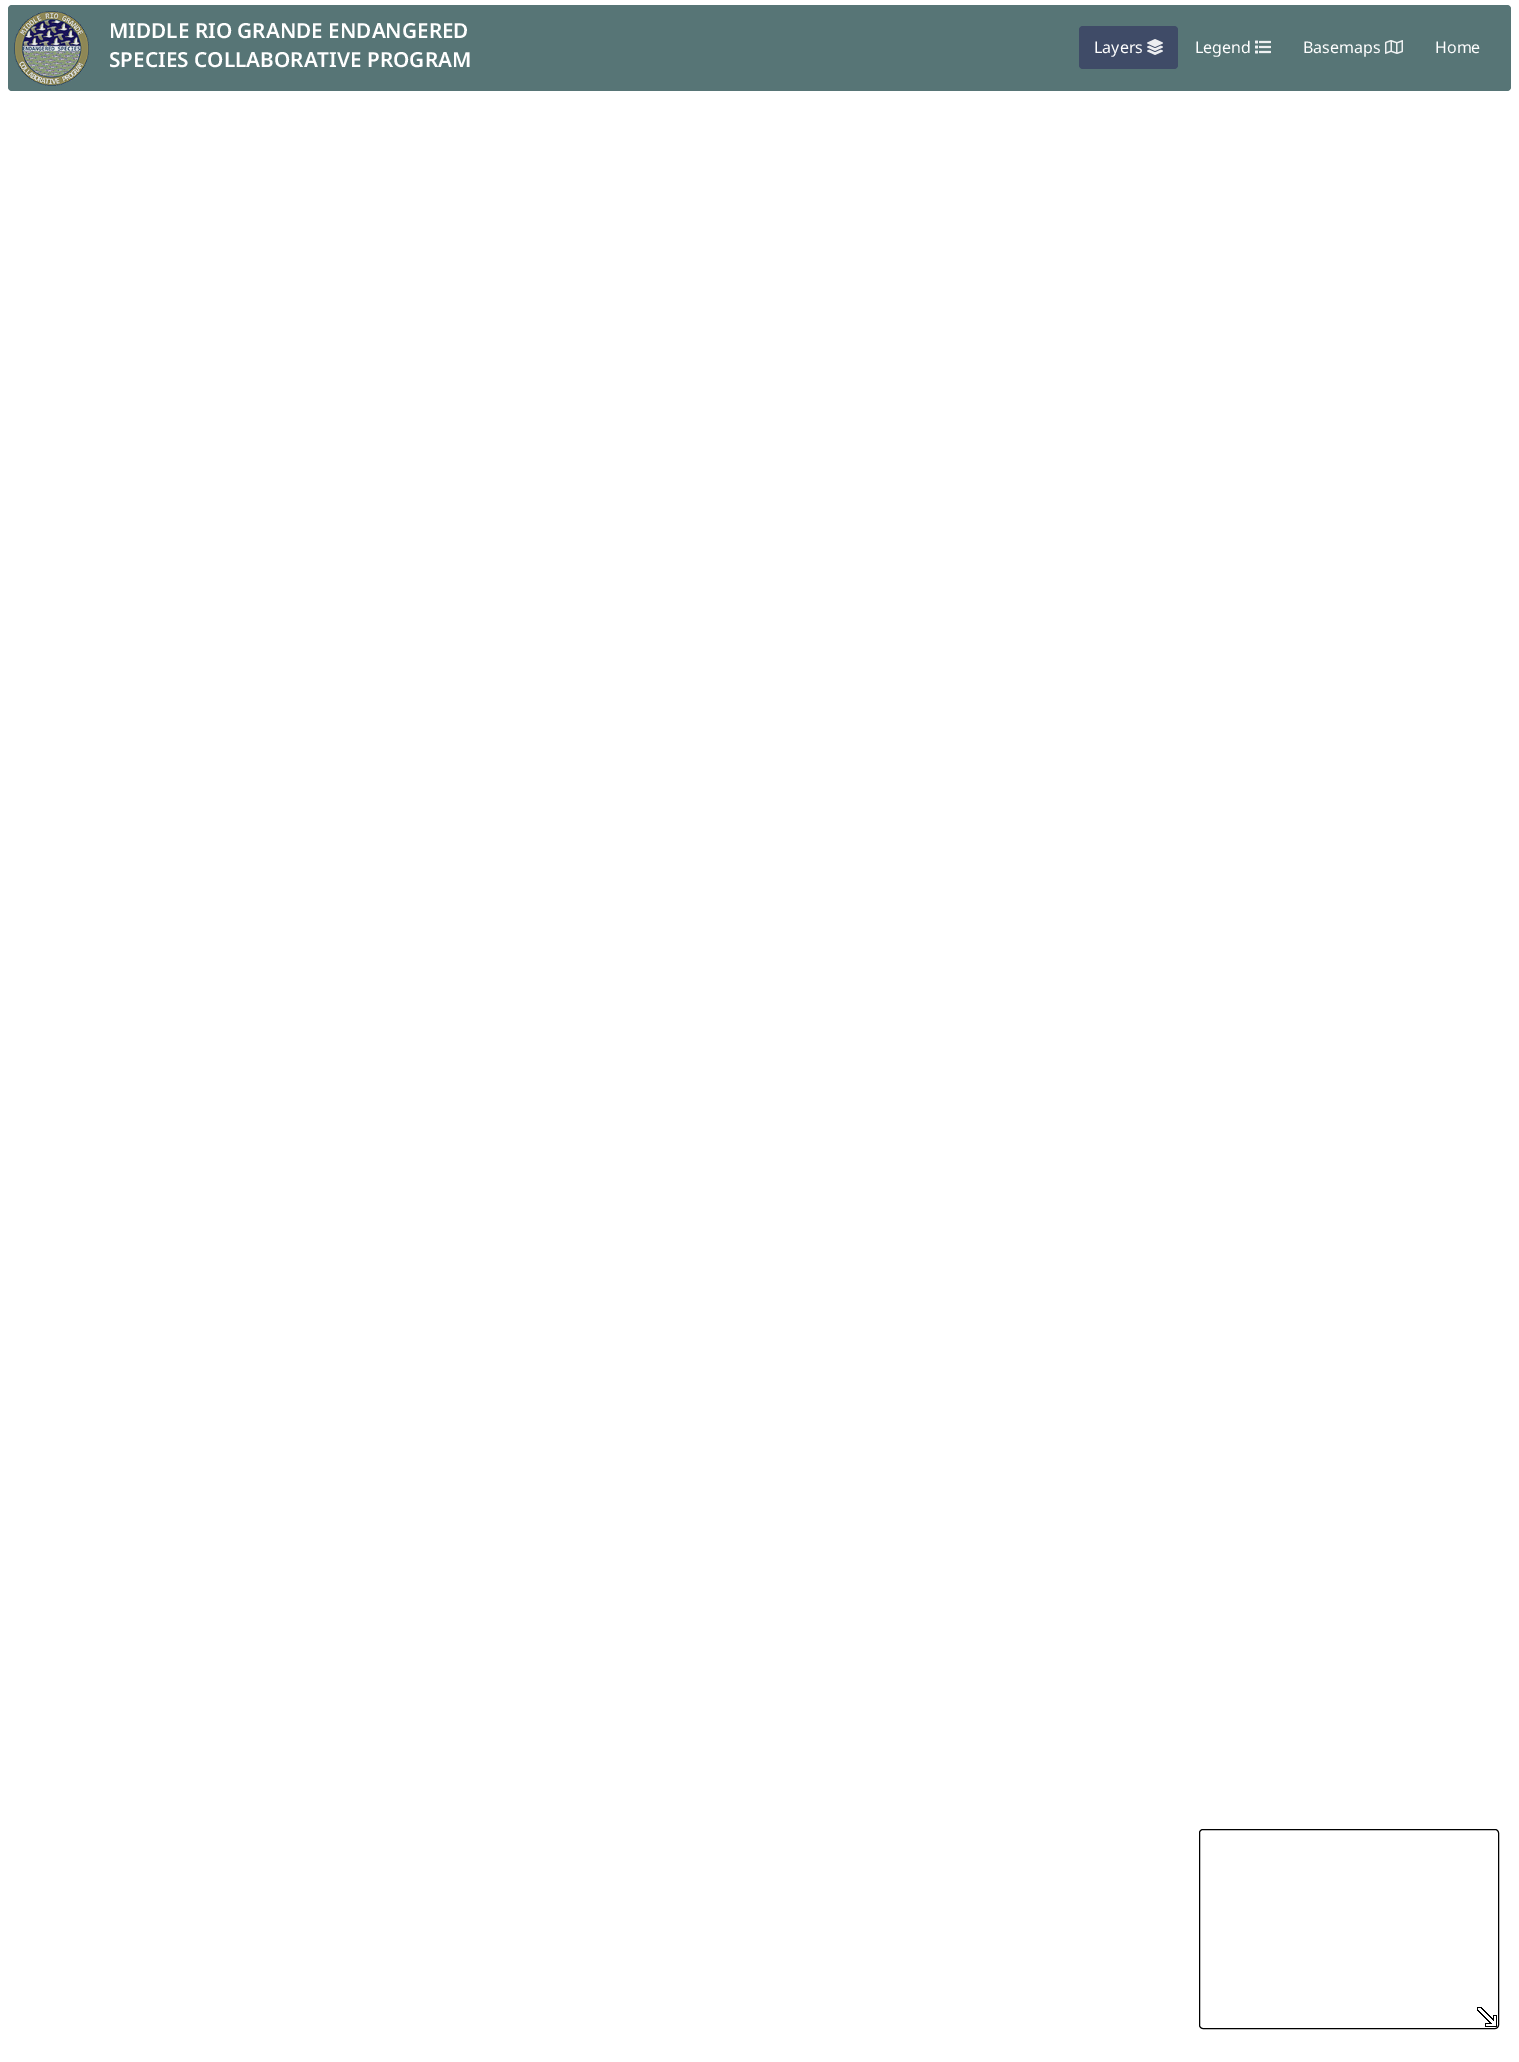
%!PS
<< /PageSize [1519 2062] >> setpagedevice
/roundrect { 5 dict begin { /r /h /w /y /x } { exch def } forall
  x r add y moveto x w add y 2 copy h add r arct x w add y h add x 1 index r arct
  x y h add x y r arct x y 2 copy exch w add exch r arct closepath end } def
/picture { 5 dict begin { /h /w /y /x /name } { exch def } forall
  gsave x y translate w h scale
  w h 8 [w 0 0 h 0 0] name (r) file false 3 colorimage grestore end } def
0 2062 translate 1 -1 scale
4 setmiterlimit
1 setgray
0 0 1519 2062 rectfill
0.341 0.459 0.463 setrgbcolor
8 5 1503 86 4 roundrect fill
(img1.rgb) 14 11 75 75 picture
/NotoSans-SemiBold [20.75 0 0 -20.75 0 0] selectfont
1 setgray
109 38 moveto (MIDDLE RIO GRANDE ENDANGERED) show
109 67 moveto (SPECIES COLLABORATIVE PROGRAM) show
0.247 0.294 0.404 setrgbcolor
1079 26 99 43 4 roundrect fill
/NotoSans-Regular [16 0 0 -16 0 0] selectfont
1 setgray
1094 53 moveto (Layers) show
(img2.rgb) 1147 39 16 16 picture
1195 53 moveto (Legend) show
(img3.rgb) 1255 40 16 14 picture
1303 53 moveto (Basemaps) show
(img4.rgb) 1385 40 18 14 picture
1435 53 moveto (Home) show
0 setgray
1199.5 1829.5 299 199 3.5 roundrect stroke
(img5.rgb) 1477 2007 20 20 picture
showpage
